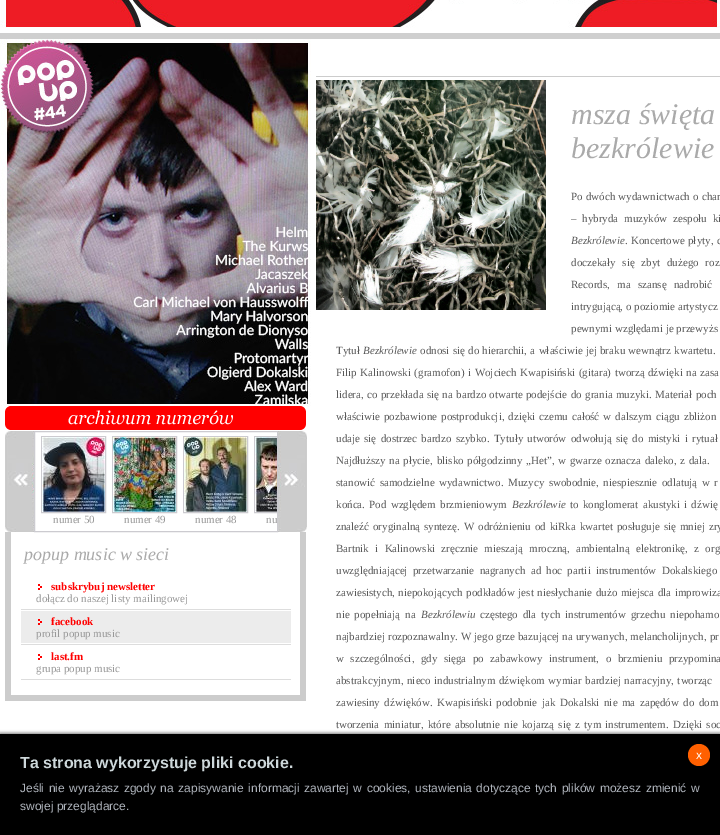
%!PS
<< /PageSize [720 835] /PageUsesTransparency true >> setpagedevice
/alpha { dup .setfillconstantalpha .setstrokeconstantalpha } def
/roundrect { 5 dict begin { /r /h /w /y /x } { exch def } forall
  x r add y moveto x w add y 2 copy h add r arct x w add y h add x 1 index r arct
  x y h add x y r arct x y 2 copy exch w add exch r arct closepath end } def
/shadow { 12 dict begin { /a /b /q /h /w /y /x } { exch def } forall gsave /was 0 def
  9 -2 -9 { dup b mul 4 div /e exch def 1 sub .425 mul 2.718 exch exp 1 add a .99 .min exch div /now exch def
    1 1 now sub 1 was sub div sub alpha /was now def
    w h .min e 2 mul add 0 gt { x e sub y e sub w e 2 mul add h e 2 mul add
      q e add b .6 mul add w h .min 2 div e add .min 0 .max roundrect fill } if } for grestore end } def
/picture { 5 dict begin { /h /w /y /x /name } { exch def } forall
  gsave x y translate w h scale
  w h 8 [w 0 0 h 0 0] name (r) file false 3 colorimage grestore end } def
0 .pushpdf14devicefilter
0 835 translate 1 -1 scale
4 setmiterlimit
0.812 setgray
0 0 720 835 rectfill
1 setgray
0 28 720 5 rectfill
(img1.rgb) 0 0 720 28 picture
0 39 720 695 rectfill
(img2.rgb) 0 39 311 367 picture
(img3.rgb) 5 406 304 24 picture
(img4.rgb) 5 431 29 101 picture
0.8 0.796 0.816 setrgbcolor
34.5 431.5 243 100 rectstroke
41.5 436.5 64 76 rectstroke
(img5.rgb) 42 437 63 75 picture
/LiberationSerif-Regular [11 0 0 -11 0 0] selectfont
0.6 setgray
53 523 moveto (numer 50) show
0.8 0.796 0.816 setrgbcolor
112.5 436.5 64 76 rectstroke
(img6.rgb) 113 437 63 75 picture
0.6 setgray
124 523 moveto (numer 49) show
0.8 0.796 0.816 setrgbcolor
183.5 436.5 64 76 rectstroke
(img7.rgb) 184 437 63 75 picture
0.6 setgray
195 523 moveto (numer 48) show
(img9.rgb) 278 431 29 101 picture
gsave
35 432 242 99 rectclip
0.8 0.796 0.816 setrgbcolor
254.5 436.5 64 76 rectstroke
grestore
(img8.rgb) 255 437 22 75 picture
266 523 moveto (nu) show
0.8 setgray
300 532 6 169 rectfill
5 695 301 6 rectfill
5 532 6 169 rectfill
/LiberationSerif-Italic [18 0 0 -18 0 0] selectfont
0.667 setgray
24 560 moveto (popup music w sieci) show
0.867 setgray
21 609 270 1 rectfill
(img10.rgb) 38 584 4 6 picture
/LiberationSerif-Bold [11 0 0 -11 0 0] selectfont
1 0 0 setrgbcolor
51 590 moveto (subskrybuj newsletter) show
/LiberationSerif-Regular [11 0 0 -11 0 0] selectfont
0.6 setgray
36 602 moveto (dołącz do naszej listy mailingowej) show
0.867 setgray
21 644 270 1 rectfill
0.925 setgray
21 611 270 32 rectfill
(img11.rgb) 38 619 4 6 picture
/LiberationSerif-Bold [11 0 0 -11 0 0] selectfont
1 0 0 setrgbcolor
51 625 moveto (facebook) show
/LiberationSerif-Regular [11 0 0 -11 0 0] selectfont
0.6 setgray
36 637 moveto (profil popup music) show
0.867 setgray
21 679 270 1 rectfill
(img10.rgb) 38 654 4 6 picture
/LiberationSerif-Bold [11 0 0 -11 0 0] selectfont
1 0 0 setrgbcolor
51 660 moveto (last.fm) show
/LiberationSerif-Regular [11 0 0 -11 0 0] selectfont
0.6 setgray
36 672 moveto (grupa popup music) show
0.8 setgray
316 76 404 1 rectfill
(img12.rgb) 316 80 230 230 picture
/LiberationSerif-Italic [30 0 0 -30 0 0] selectfont
0.667 setgray
571 124 moveto (msza święta) show
571 158 moveto (bezkrólewie) show
/LiberationSerif-Regular [11 0 0 -11 0 0] selectfont
0.349 setgray
571 200 moveto 0.5 0 32 (Po dwóch wydawnictwach o char) widthshow
571 222 moveto 3 0 32 (– hybryda muzyków zespołu ki) widthshow
/LiberationSerif-Italic [11 0 0 -11 0 0] selectfont
571 244 moveto (Bezkrólewie) show
/LiberationSerif-Regular [11 0 0 -11 0 0] selectfont
625 244 moveto 0.5 0 32 (. Koncertowe płyty, c) widthshow
571 266 moveto 4 0 32 (doczekały się zbyt dużego roz) widthshow
571 288 moveto 4.5 0 32 (Records, ma szansę nadrobić) widthshow
571 310 moveto (intrygującą, o poziomie artystycz) show
571 332 moveto (pewnymi względami je przewyżs) show
336 354 moveto (Tytuł) show
/LiberationSerif-Italic [11 0 0 -11 0 0] selectfont
363 354 moveto (Bezkrólewie) show
/LiberationSerif-Regular [11 0 0 -11 0 0] selectfont
420 354 moveto 0.5 0 32 (odnosi się do hierarchii, a właściwie jej braku wewnątrz kwartetu.) widthshow
336 376 moveto 0.75 0 32 (Filip Kalinowski \(gramofon\) i Wojciech Kwapisiński \(gitara\) tworzą dźwięki na zasa) widthshow
336 398 moveto 0.6 0 32 (lidera, co przekłada się na bardzo otwarte podejście do grania muzyki. Materiał poch) widthshow
336 420 moveto 1.25 0 32 (właściwie pozbawione postprodukcji, dzięki czemu całość w dalszym ciągu zbliżon) widthshow
336 442 moveto 1.5 0 32 (udaje się dostrzec bardzo szybko. Tytuły utworów odwołują się do mistyki i rytuał) widthshow
336 464 moveto 1 0 32 (Najdłuższy na płycie, blisko półgodzinny „Het”, w gwarze oznacza daleko, z dala.) widthshow
336 486 moveto 1.75 0 32 (stanowić samodzielne wydawnictwo. Muzycy swobodnie, niespiesznie odlatują w r) widthshow
336 508 moveto 1.5 0 32 (końca. Pod względem brzmieniowym) widthshow
/LiberationSerif-Italic [11 0 0 -11 0 0] selectfont
512 508 moveto (Bezkrólewie) show
/LiberationSerif-Regular [11 0 0 -11 0 0] selectfont
570 508 moveto 1.5 0 32 (to konglomerat akustyki i dźwię) widthshow
336 530 moveto 1.25 0 32 (znaleźć oryginalną syntezę. W odróżnieniu od kiRka kwartet posługuje się mniej zry) widthshow
336 552 moveto 3.5 0 32 (Bartnik i Kalinowski zręcznie mieszają mroczną, ambientalną elektronikę, z org) widthshow
336 574 moveto 2.5 0 32 (uwzględniającej przetwarzanie nagranych ad hoc partii instrumentów Dokalskiego) widthshow
336 596 moveto 0.75 0 32 (zawiesistych, niepokojących podkładów jest niesłychanie dużo miejsca dla improwiza) widthshow
336 618 moveto 2.25 0 32 (nie popełniają na) widthshow
/LiberationSerif-Italic [11 0 0 -11 0 0] selectfont
421 618 moveto (Bezkrólewiu) show
/LiberationSerif-Regular [11 0 0 -11 0 0] selectfont
480 618 moveto 2.25 0 32 (częstego dla tych instrumentów grzechu niepohamo) widthshow
336 640 moveto 0.25 0 32 (najbardziej rozpoznawalny. W jego grze bazującej na urywanych, melancholijnych, pr) widthshow
336 662 moveto 3.75 0 32 (w szczególności, gdy sięga po zabawkowy instrument, o brzmieniu przypomina) widthshow
336 684 moveto 0.75 0 32 (abstrakcyjnym, nieco industrialnym dźwiękom wymiar bardziej narracyjny, tworząc) widthshow
336 706 moveto 1.75 0 32 (zawiesiny dźwięków. Kwapisiński podobnie jak Dokalski nie ma zapędów do dom) widthshow
336 728 moveto 1.5 0 32 (tworzenia miniatur, które absolutnie nie kojarzą się z tym instrumentem. Dzięki soc) widthshow
0 setgray
0 733 720 101 0 1.5 0.5 shadow
0 734 720 101 rectfill
/LiberationSans-Bold [16 0 0 -16 0 0] selectfont
0.804 0.843 0.855 setrgbcolor
20 768 moveto (Ta strona wykorzystuje pliki cookie.) show
1 0.376 0 setrgbcolor
newpath 699 755 11 0 360 arc closepath fill
/LiberationSans-Regular [12 0 0 -12 0 0] selectfont
1 setgray
696 759 moveto (x) show
0.686 0.706 0.737 setrgbcolor
20 792 moveto 1.25 0 32 (Jeśli nie wyrażasz zgody na zapisywanie informacji zawartej w cookies, ustawienia dotyczące tych plików możesz zmienić w) widthshow
20 810 moveto (swojej przeglądarce.) show
.poppdf14devicefilter showpage
